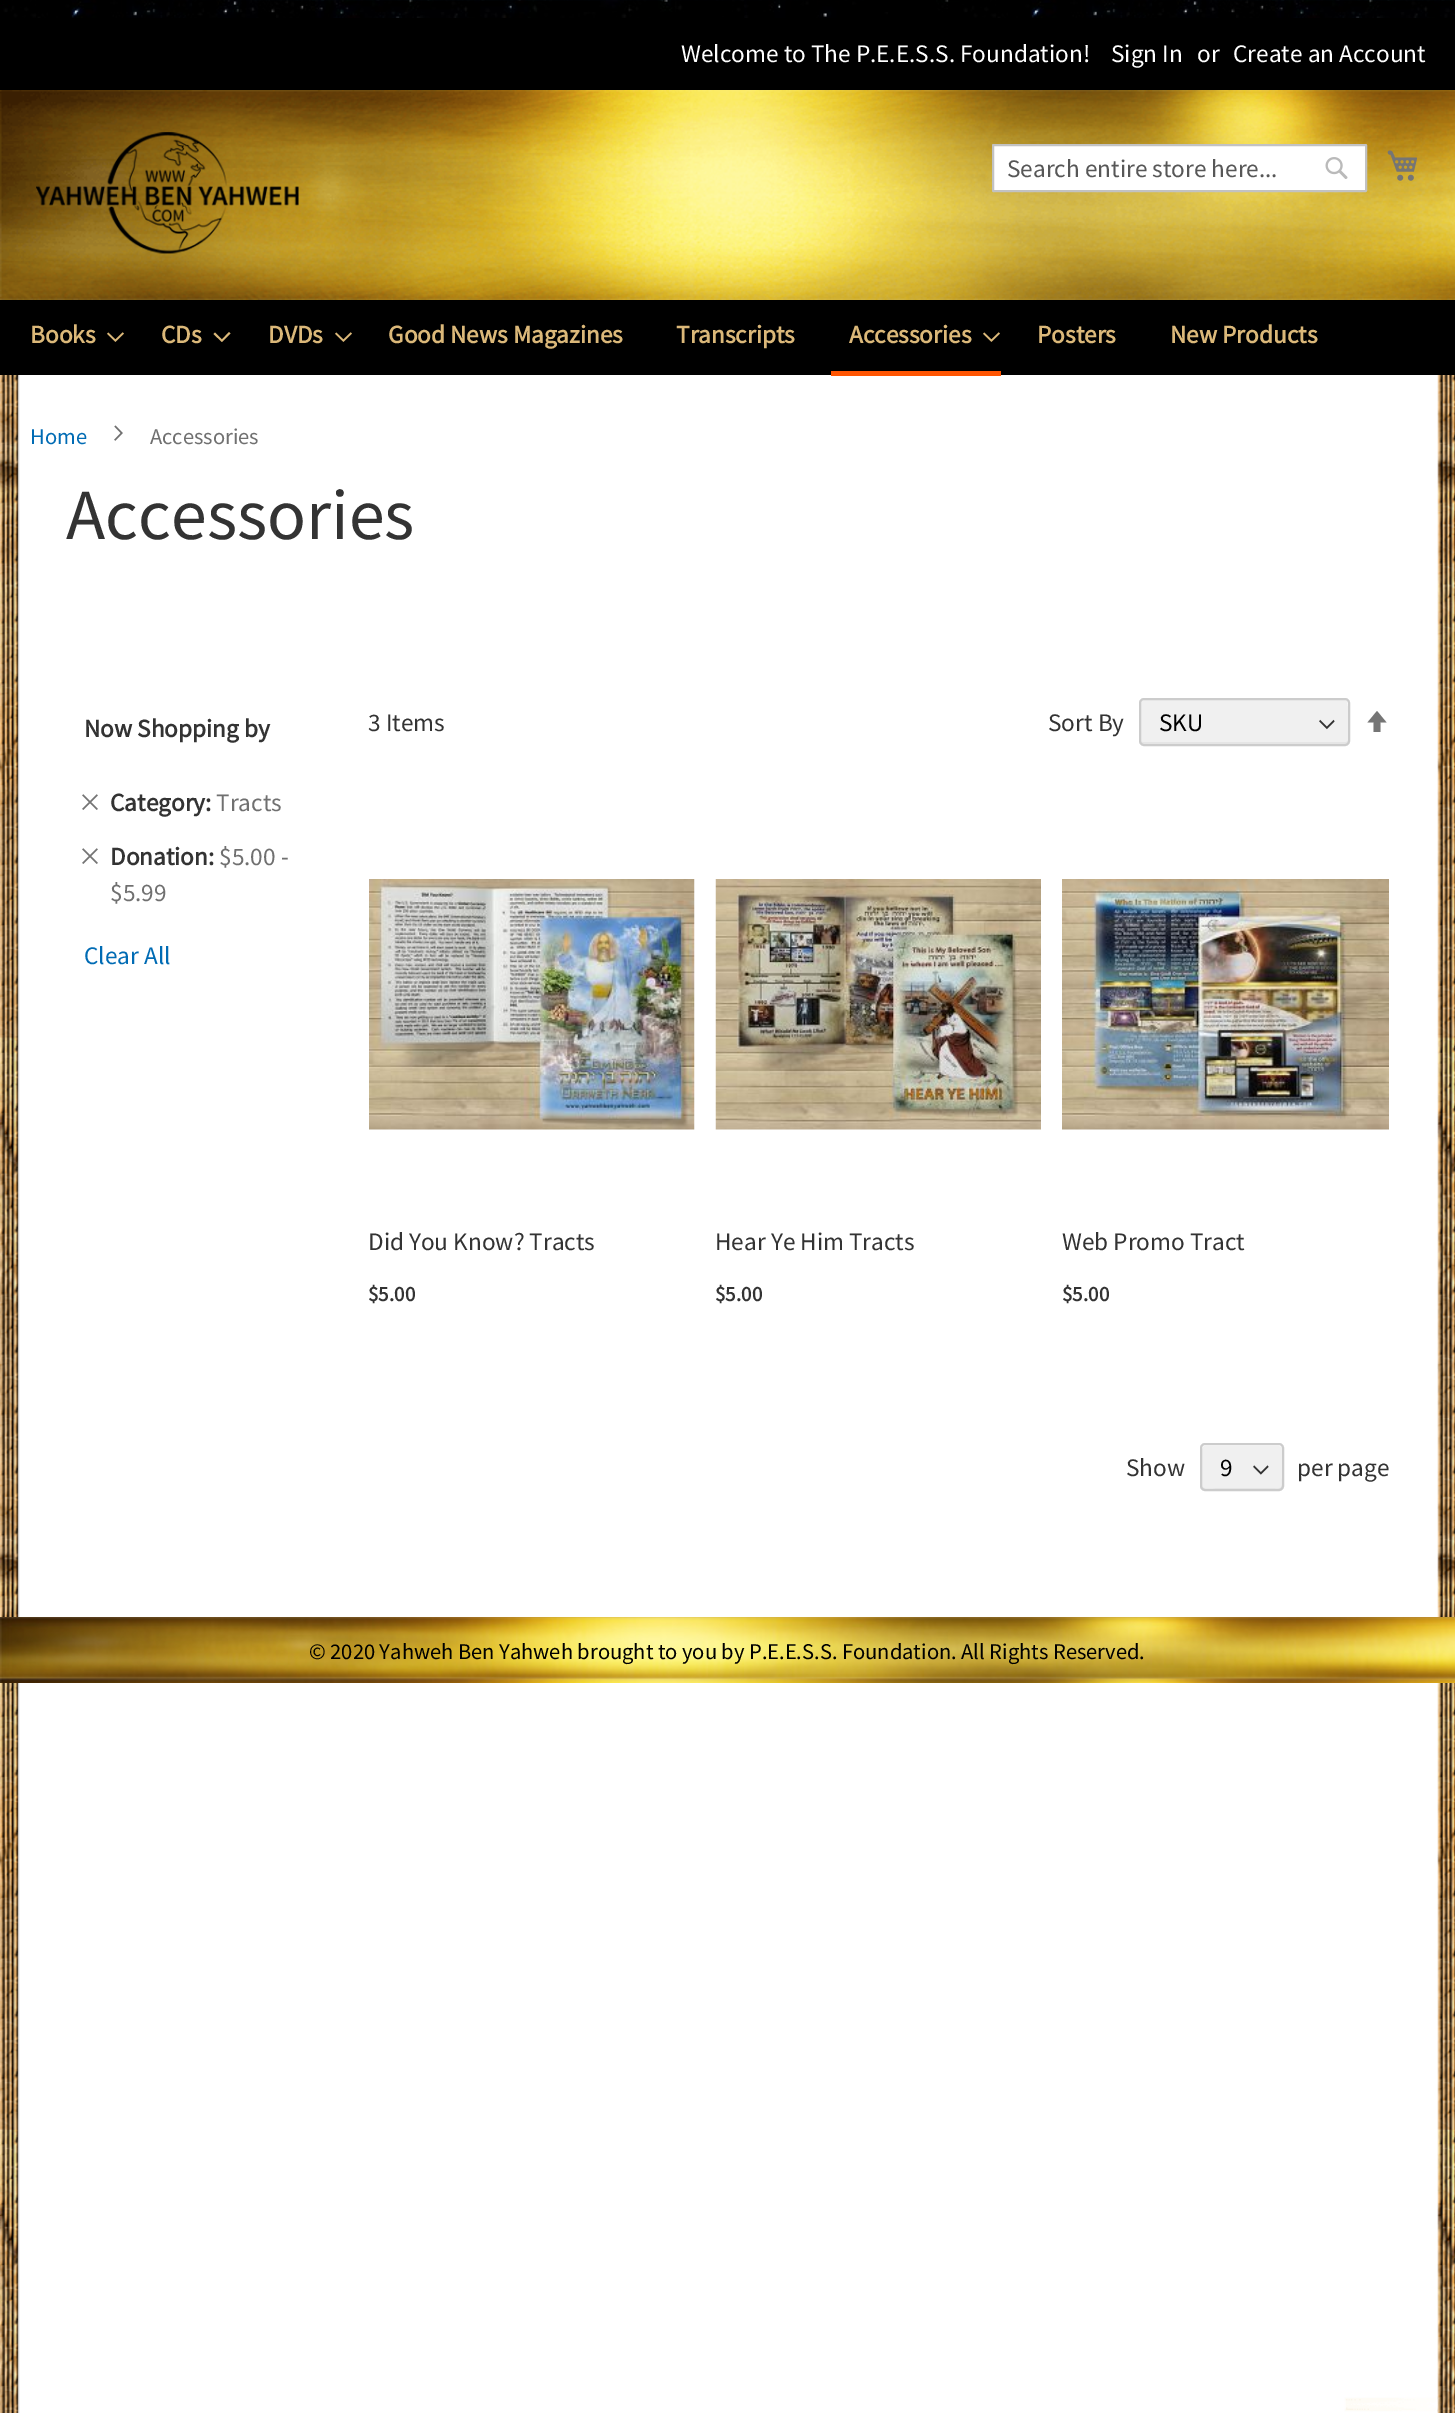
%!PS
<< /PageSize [1455 2413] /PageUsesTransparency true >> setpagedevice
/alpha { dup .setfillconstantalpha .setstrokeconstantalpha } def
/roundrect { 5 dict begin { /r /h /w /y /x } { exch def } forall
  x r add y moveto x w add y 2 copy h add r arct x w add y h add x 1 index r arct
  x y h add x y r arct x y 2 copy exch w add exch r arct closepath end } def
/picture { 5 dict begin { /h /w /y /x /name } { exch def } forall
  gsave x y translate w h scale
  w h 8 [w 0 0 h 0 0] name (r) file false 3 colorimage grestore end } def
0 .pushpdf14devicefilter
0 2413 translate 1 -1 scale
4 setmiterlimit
1 setgray
0 0 1455 2413 rectfill
(img1.rgb) 0 0 1455 18 picture
(img2.rgb) 0 375 1455 2038 picture
0 setgray
0 18 1455 72 rectfill
/SourceSansPro-Regular [25.25 0 0 -25.25 0 0] selectfont
1 setgray
681 62 moveto (Welcome to The P.E.E.S.S. Foundation!) show
1111 62 moveto (Sign In) show
1197 62 moveto (or) show
1233 62 moveto (Create an Account) show
(img3.rgb) 0 90 1455 210 picture
(img4.rgb) 36 132 263 122 picture
993 145 373 46 0.5 roundrect gsave fill grestore
0.761 setgray
2 setlinewidth
stroke
0.341 setgray
1007 177 moveto (Search entire store here...) show
(img5.rgb) 1325 157 23 22 picture
(img6.rgb) 1387 150 30 31 picture
0 setgray
0 300 1455 75 rectfill
/SourceSansPro-Bold [25.25 0 0 -25.25 0 0] selectfont
0.859 0.722 0.475 setrgbcolor
30 343 moveto (Books) show
(img7.rgb) 107 332 17 10 picture
161 343 moveto (CDs) show
newpath 222 339.5 moveto 215 332.5 lineto 213.5 334 lineto 222 342 lineto 230.5 333.5 lineto 229 332 lineto closepath fill
268 343 moveto (DVDs) show
(img7.rgb) 335 332 17 10 picture
388 343 moveto (Good News Magazines) show
676 343 moveto (Transcripts) show
1 0.333 0.004 setrgbcolor
831 371 170 5 rectfill
0.859 0.722 0.475 setrgbcolor
849 343 moveto (Accessories) show
(img7.rgb) 983 332 17 10 picture
1037 343 moveto (Posters) show
1170 343 moveto (New Products) show
/SourceSansPro-Regular [22.5 0 0 -22.5 0 0] selectfont
0 0.42 0.706 setrgbcolor
30 444 moveto (Home) show
(img8.rgb) 114 425 9 16 picture
0.439 setgray
150 444 moveto (Accessories) show
/SourceSansPro-Regular [72 0 0 -72 0 0] selectfont
0.2 setgray
66 539 moveto (Accessories) show
/SourceSansPro-Bold [25.25 0 0 -25.25 0 0] selectfont
84 737 moveto (Now Shopping by) show
(img9.rgb) 82 794 16 16 picture
110 811 moveto (Category:) show
/SourceSansPro-Regular [25.25 0 0 -25.25 0 0] selectfont
0.439 setgray
216 811 moveto (Tracts) show
(img9.rgb) 82 848 16 16 picture
/SourceSansPro-Bold [25.25 0 0 -25.25 0 0] selectfont
0.2 setgray
110 865 moveto (Donation:) show
/SourceSansPro-Regular [25.25 0 0 -25.25 0 0] selectfont
0.439 setgray
219 865 moveto ($5.00 -) show
110 901 moveto ($5.99) show
0 0.42 0.706 setrgbcolor
84 964 moveto (Clear All) show
0.2 setgray
368 731 moveto (3 Items) show
1048 731 moveto (Sort By) show
0.941 setgray
1140 699 209 45 3 roundrect fill
(img10.rgb) 1319 719 16 11 picture
0.3 alpha
0.8 setgray
newpath 1140 740 moveto 1140 741 lineto 1140 743 1141 744 1143 744 curveto 1346 744 lineto 1348 744 1349 743 1349 741 curveto 1349 702 lineto 1349 701 1349 700 1348 700 curveto 1348 740 lineto 1348 741 1347 742 1346 742 curveto 1143 742 lineto 1141 742 1140 741 1140 740 curveto closepath fill
1 alpha
1 setgray
newpath 1143 700 moveto 1346 700 lineto 1349 700 1348 716 1348 717 curveto 1348 743 lineto 1349 743 1349 742 1349 741 curveto 1349 702 lineto 1349 700 1348 699 1346 699 curveto 1143 699 lineto 1141 699 1140 700 1140 702 curveto 1140 704 lineto 1140 702 1141 700 1143 700 curveto closepath fill
0.8 setgray
1140 699 209 46 4 roundrect stroke
0 setgray
1159 731 moveto (SKU) show
0.459 setgray
newpath 1377 711 moveto 1367.5 722.5 lineto 1373.5 722.5 lineto 1373.5 732 lineto 1380.5 732 lineto 1380.5 722.5 lineto 1386.5 722.5 lineto closepath fill
(img11.rgb) 369 879 326 251 picture
0.2 setgray
368 1250 moveto (Did You Know? Tracts) show
/SourceSansPro-Bold [21 0 0 -21 0 0] selectfont
368 1301 moveto ($5.00) show
(img12.rgb) 715 879 326 251 picture
/SourceSansPro-Regular [25.25 0 0 -25.25 0 0] selectfont
715 1250 moveto (Hear Ye Him Tracts) show
/SourceSansPro-Bold [21 0 0 -21 0 0] selectfont
715 1301 moveto ($5.00) show
(img13.rgb) 1062 879 327 251 picture
/SourceSansPro-Regular [25.25 0 0 -25.25 0 0] selectfont
1062 1250 moveto (Web Promo Tract) show
/SourceSansPro-Bold [21 0 0 -21 0 0] selectfont
1062 1301 moveto ($5.00) show
/SourceSansPro-Regular [25.25 0 0 -25.25 0 0] selectfont
1126 1476 moveto (Show) show
0.941 setgray
1202 1445 81 45 3 roundrect fill
(img14.rgb) 1253 1465 16 10 picture
0.3 alpha
0.8 setgray
newpath 1202 1485 moveto 1202 1487 lineto 1202 1489 1203 1490 1205 1490 curveto 1280 1490 lineto 1282 1490 1283 1489 1283 1487 curveto 1283 1448 lineto 1283 1447 1283 1446 1282 1446 curveto 1282 1478 lineto 1282 1491 1282 1488 1267 1488 curveto 1217 1488 lineto 1215 1488 1202 1491 1202 1485 curveto closepath fill
1 alpha
1 setgray
newpath 1204 1446 moveto 1267 1446 lineto 1286 1446 1282 1443 1282 1462 curveto 1282 1489 lineto 1283 1489 1283 1488 1283 1487 curveto 1283 1448 lineto 1283 1446 1282 1445 1280 1445 curveto 1205 1445 lineto 1203 1445 1202 1446 1202 1448 curveto 1202 1449 lineto 1202 1447 1203 1446 1204 1446 curveto closepath fill
0.8 setgray
1201 1444 82 46 4 roundrect stroke
0 setgray
1220 1476 moveto (9) show
0.2 setgray
1297 1476 moveto (per page) show
(img15.rgb) 0 1617 1455 66 picture
/SourceSansPro-Regular [22.5 0 0 -22.5 0 0] selectfont
0 setgray
309 1659 moveto (© 2020 Yahweh Ben Yahweh brought to you by P.E.E.S.S. Foundation. All Rights Reserved.) show
.poppdf14devicefilter showpage
